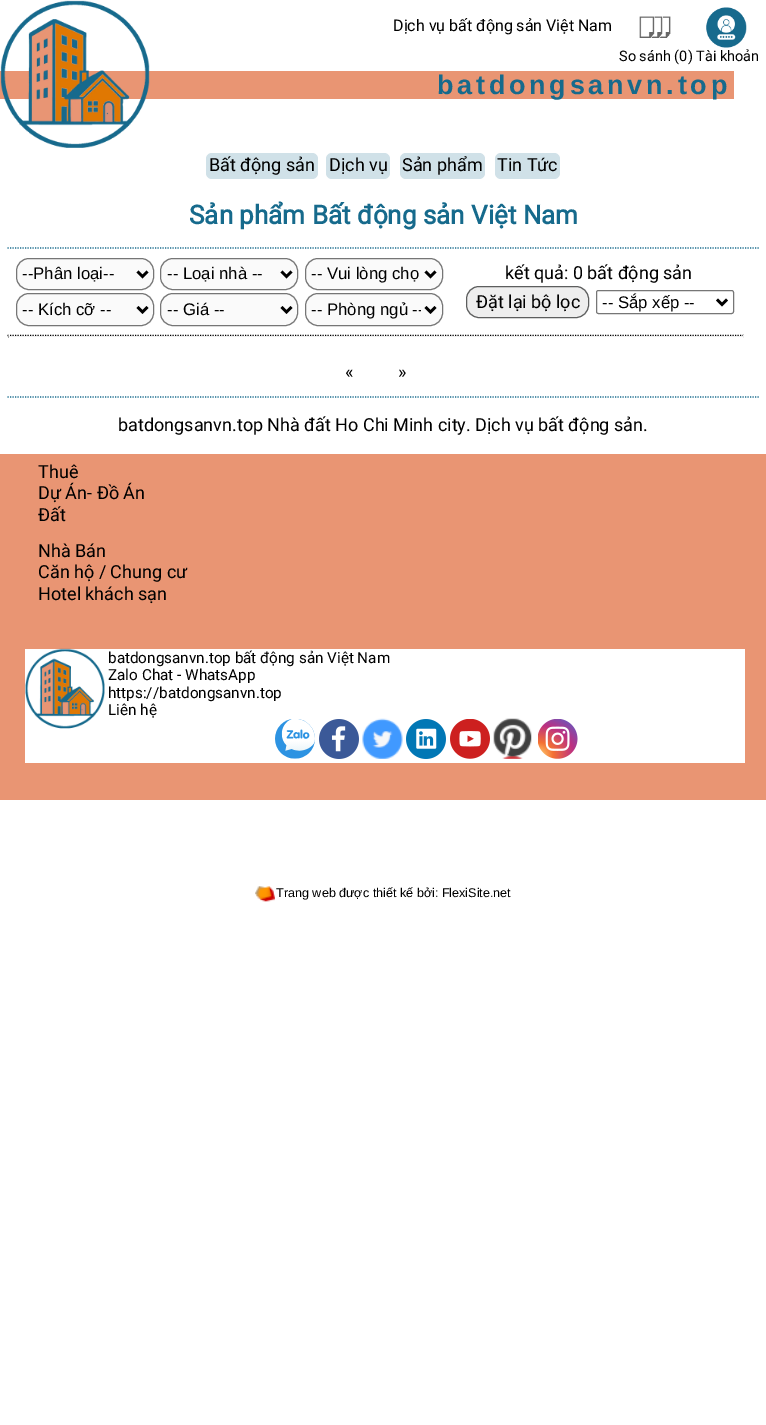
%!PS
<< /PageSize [766 1425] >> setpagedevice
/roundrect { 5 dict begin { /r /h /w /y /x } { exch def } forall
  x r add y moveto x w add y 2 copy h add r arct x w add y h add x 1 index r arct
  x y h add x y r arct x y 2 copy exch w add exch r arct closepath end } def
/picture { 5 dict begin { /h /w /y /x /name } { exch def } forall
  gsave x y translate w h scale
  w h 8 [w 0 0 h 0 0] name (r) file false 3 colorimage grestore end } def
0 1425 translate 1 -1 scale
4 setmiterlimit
1 setgray
0 0 766 1425 rectfill
0.914 0.584 0.451 setrgbcolor
0 71 734 28 rectfill
(img1.rgb) 0 0 150 148 picture
/Roboto-Regular [16 0 0 -16 0 0] selectfont
0 setgray
393 31 moveto (Dịch vụ bất động sản Việt Nam) show
(img2.rgb) 706 7 41 41 picture
(img3.rgb) 639 16 32 22 picture
/Roboto-Regular [14.5 0 0 -14.5 0 0] selectfont
619 61 moveto (So sánh \(0\) Tài khoản) show
/LiberationSans-Bold [27 0 0 -27 0 0] selectfont
0.086 0.416 0.549 setrgbcolor
437 94 moveto 3.75 0 (batdongsanvn.top) ashow
0.816 0.882 0.91 setrgbcolor
206 153 112 26 6 roundrect fill
/Roboto-Regular [18 0 0 -18 0 0] selectfont
0 setgray
209 171 moveto (Bất động sản) show
0.816 0.882 0.91 setrgbcolor
326 153 64 26 6 roundrect fill
0 setgray
329 171 moveto (Dịch vụ) show
0.816 0.882 0.91 setrgbcolor
400 153 85 26 6 roundrect fill
0 setgray
402 171 moveto (Sản phẩm) show
0.816 0.882 0.91 setrgbcolor
495 153 65 26 6 roundrect fill
0 setgray
497 171 moveto (Tin Tức) show
/Roboto-Bold [26 0 0 -26 0 0] selectfont
0.086 0.416 0.549 setrgbcolor
189 224 moveto (Sản phẩm Bất động sản Việt Nam) show
1.2 setlinewidth
[1.25 1.25] 0 setdash
newpath 7.5 248 moveto 759 248 lineto stroke
newpath 7.5 397 moveto 759 397 lineto stroke
0.98 setgray
16.5 258.5 137 31 12.5 roundrect gsave fill grestore
0.463 setgray
1 setlinewidth
[] 0 setdash
stroke
0 setgray
2.5 setlinewidth
newpath 137.5 271.5 moveto 142.5 276.5 lineto 147.5 271.5 lineto stroke
/LiberationSans-Regular [16.75 0 0 -16.75 0 0] selectfont
22 279 moveto (--Phân loại--) show
0.98 setgray
160.5 258.5 137 31 12.5 roundrect gsave fill grestore
0.463 setgray
1 setlinewidth
stroke
0 setgray
2.5 setlinewidth
newpath 281.5 271.5 moveto 286.5 276.5 lineto 291.5 271.5 lineto stroke
167 279 moveto (-- Loại nhà --) show
0.98 setgray
305.5 258.5 137 31 12.5 roundrect gsave fill grestore
0.463 setgray
1 setlinewidth
stroke
0 setgray
2.5 setlinewidth
newpath 425.5 271.5 moveto 430.5 276.5 lineto 435.5 271.5 lineto stroke
311 279 moveto (-- Vui lòng chọ) show
0.98 setgray
16.5 293.5 137 32 12.5 roundrect gsave fill grestore
0.463 setgray
1 setlinewidth
stroke
0 setgray
2.5 setlinewidth
newpath 137.5 307 moveto 142.5 312 lineto 147.5 307 lineto stroke
22 315 moveto (-- Kích cỡ --) show
0.98 setgray
160.5 293.5 137 32 12.5 roundrect gsave fill grestore
0.463 setgray
1 setlinewidth
stroke
0 setgray
2.5 setlinewidth
newpath 281.5 307 moveto 286.5 312 lineto 291.5 307 lineto stroke
167 315 moveto (-- Giá --) show
0.98 setgray
305.5 293.5 137 32 12.5 roundrect gsave fill grestore
0.463 setgray
1 setlinewidth
stroke
0 setgray
2.5 setlinewidth
newpath 425.5 307 moveto 430.5 312 lineto 435.5 307 lineto stroke
gsave
311 299 110 21 rectclip
311 315 moveto (-- Phòng ngủ --) show
grestore
/Roboto-Regular [18 0 0 -18 0 0] selectfont
505 279 moveto (kết quả: 0 bất động sản) show
0.933 setgray
466.5 286.5 122 31 12.5 roundrect gsave fill grestore
0.365 0.369 0.369 setrgbcolor
1 setlinewidth
stroke
0 setgray
476 308 moveto (Đặt lại bộ lọc) show
0.463 setgray
596.5 290.5 137 23 2 roundrect stroke
0 setgray
2.5 setlinewidth
newpath 717 299.5 moveto 722 304.5 lineto 727 299.5 lineto stroke
/LiberationSans-Regular [16.75 0 0 -16.75 0 0] selectfont
602 308 moveto (-- Sắp xếp --) show
1.2 setlinewidth
[1.25 1.25] 0 setdash
newpath 7.5 335.5 moveto 744 335.5 lineto stroke
0.933 setgray
743 335 1 3 rectfill
8 336 736 1 rectfill
0.624 setgray
8 335 1 3 rectfill
/Roboto-Regular [18 0 0 -18 0 0] selectfont
0 setgray
345 378 moveto («) show
398 378 moveto (») show
118 431 moveto (batdongsanvn.top Nhà đất Ho Chi Minh city. Dịch vụ bất động sản.) show
0.914 0.584 0.451 setrgbcolor
0 454 766 346 rectfill
0 setgray
38 478 moveto (Thuê) show
38 499 moveto (Dự Án- Đồ Án) show
38 521 moveto (Đất) show
38 557 moveto (Nhà Bán) show
38 578 moveto (Căn hộ / Chung cư) show
38 600 moveto (Hotel khách sạn) show
1 setgray
25 649 720 114 rectfill
(img4.rgb) 25 648 80 81 picture
/Roboto-Regular [15.25 0 0 -15.25 0 0] selectfont
0 setgray
108 663 moveto (batdongsanvn.top bất động sản Việt Nam) show
108 680 moveto (Zalo Chat - WhatsApp) show
108 698 moveto (https://batdongsanvn.top) show
108 715 moveto (Liên hệ) show
(img5.rgb) 275 719 40 40 picture
(img6.rgb) 319 719 40 40 picture
(img7.rgb) 362 718 41 41 picture
(img8.rgb) 406 719 40 40 picture
(img9.rgb) 450 719 40 40 picture
(img10.rgb) 493 718 39 41 picture
(img11.rgb) 538 719 40 40 picture
(img12.rgb) 255 886 20 16 picture
/LiberationSans-Regular [12.6 0 0 -12.6 0 0] selectfont
276 897 moveto (Trang web được thiết kế bởi: FlexiSite.net) show
showpage
